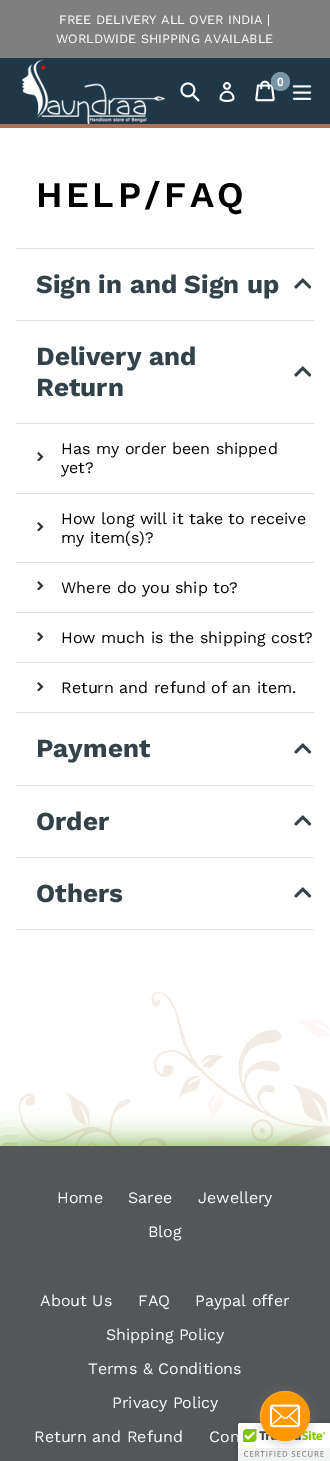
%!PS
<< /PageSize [330 1461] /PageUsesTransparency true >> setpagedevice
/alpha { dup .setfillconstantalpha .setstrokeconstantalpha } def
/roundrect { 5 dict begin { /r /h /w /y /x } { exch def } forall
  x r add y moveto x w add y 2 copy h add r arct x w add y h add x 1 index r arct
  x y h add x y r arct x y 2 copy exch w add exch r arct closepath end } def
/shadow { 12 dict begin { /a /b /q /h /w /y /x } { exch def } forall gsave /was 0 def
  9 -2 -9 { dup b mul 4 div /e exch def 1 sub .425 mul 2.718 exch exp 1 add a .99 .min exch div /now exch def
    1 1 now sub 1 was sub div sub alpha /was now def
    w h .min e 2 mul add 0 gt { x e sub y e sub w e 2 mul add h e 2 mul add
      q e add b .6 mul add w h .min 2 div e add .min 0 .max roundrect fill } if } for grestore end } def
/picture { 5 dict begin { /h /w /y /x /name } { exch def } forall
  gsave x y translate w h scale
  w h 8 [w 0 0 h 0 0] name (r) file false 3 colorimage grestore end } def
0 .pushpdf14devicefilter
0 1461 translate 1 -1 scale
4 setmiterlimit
1 setgray
0 0 330 1461 rectfill
0.498 setgray
0 0 330 58 rectfill
/WorkSans-Regular [12.75 0 0 -12.75 0 0] selectfont
1 setgray
59 24 moveto (FREE DELIVERY ALL OVER INDIA |) show
56 43 moveto (WORLDWIDE SHIPPING AVAILABLE) show
0.122 0.216 0.278 setrgbcolor
0 58 330 66 rectfill
0.671 0.455 0.353 setrgbcolor
0 124 330 4 rectfill
(img1.rgb) 22 59 143 65 picture
(img2.rgb) 180 82 20 20 picture
(img3.rgb) 219 82 16 20 picture
(img4.rgb) 255 80 20 22 picture
0.467 0.588 0.659 setrgbcolor
newpath 280.5 81.5 9.5 0 360 arc closepath fill
/LiberationSans-Bold [12 0 0 -12 0 0] selectfont
1 setgray
277 86 moveto (0) show
(img5.rgb) 292 85 20 15 picture
0.878 setgray
16 248 298 1 rectfill
/WorkSans-SemiBold [36 0 0 -36 0 0] selectfont
0 setgray
36 207 moveto 3.5 0 (HELP/FAQ) ashow
0.878 setgray
16 320 298 1 rectfill
/WorkSans-Bold [26 0 0 -26 0 0] selectfont
0.2 0.259 0.286 setrgbcolor
36 293 moveto (Sign in and Sign up) show
(img6.rgb) 294 278 18 11 picture
0.878 setgray
16 423 298 1 rectfill
0.2 0.259 0.286 setrgbcolor
36 365 moveto (Delivery and) show
36 396 moveto (Return) show
(img6.rgb) 294 366 18 11 picture
0.878 setgray
16 493 298 1 rectfill
(img7.rgb) 37 452 7 9 picture
/WorkSans-Regular [16 0 0 -16 0 0] selectfont
0 setgray
61 454 moveto (Has my order been shipped) show
61 473 moveto (yet?) show
0.878 setgray
16 562 298 1 rectfill
(img7.rgb) 37 522 7 9 picture
0 setgray
61 524 moveto (How long will it take to receive) show
61 543 moveto (my item\(s\)?) show
0.878 setgray
16 612 298 1 rectfill
(img7.rgb) 37 581 7 9 picture
0 setgray
61 593 moveto (Where do you ship to?) show
0.878 setgray
16 662 298 1 rectfill
(img7.rgb) 37 632 7 9 picture
0 setgray
61 643 moveto (How much is the shipping cost?) show
0.878 setgray
16 712 298 1 rectfill
(img7.rgb) 37 682 7 9 picture
0 setgray
61 693 moveto (Return and refund of an item.) show
0.878 setgray
16 785 298 1 rectfill
/WorkSans-Bold [26 0 0 -26 0 0] selectfont
0.2 0.259 0.286 setrgbcolor
36 757 moveto (Payment) show
(img6.rgb) 294 743 18 11 picture
0.878 setgray
16 857 298 1 rectfill
0.2 0.259 0.286 setrgbcolor
36 830 moveto (Order) show
(img6.rgb) 294 815 18 11 picture
0.878 setgray
16 929 298 1 rectfill
0.2 0.259 0.286 setrgbcolor
36 902 moveto (Others) show
(img6.rgb) 294 887 18 11 picture
0.4 0.639 0.169 setrgbcolor
0 1146 330 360 0 15 1 shadow
(img8.rgb) 18 991 312 155 picture
0.329 0.341 0.353 setrgbcolor
0 1146 330 315 rectfill
/WorkSans-Regular [16 0 0 -16 0 0] selectfont
1 setgray
57 1203 moveto (Home) show
128 1203 moveto (Saree) show
198 1203 moveto (Jewellery) show
148 1237 moveto (Blog) show
40 1306 moveto (About Us) show
138 1306 moveto (FAQ) show
195 1306 moveto (Paypal offer) show
106 1340 moveto (Shipping Policy) show
88 1374 moveto (Terms & Conditions) show
112 1408 moveto (Privacy Policy) show
34 1442 moveto (Return and Refund) show
209 1442 moveto (Con) show
0 setgray
238 1423 92 38 2 2.5 0.2 shadow
1 setgray
newpath 240 1423 moveto 330 1423 lineto 330 1461 lineto 238 1461 lineto 238 1425 lineto 238 1424 239 1423 240 1423 curveto closepath fill
(img10.rgb) 238 1423 92 38 picture
0.502 setgray
260 1393 50 50 25 5.5 0.4 shadow
1 0.6 0 setrgbcolor
newpath 285 1416 25 0 360 arc closepath fill
0.15 alpha
1 setgray
newpath 286 1392 moveto 291 1392 295 1393 299 1395 curveto 275 1380 248 1410 265 1432 curveto 256 1417 263 1392 286 1392 curveto closepath fill
1 alpha
(img9.rgb) 270 1404 30 24 picture
.poppdf14devicefilter showpage
